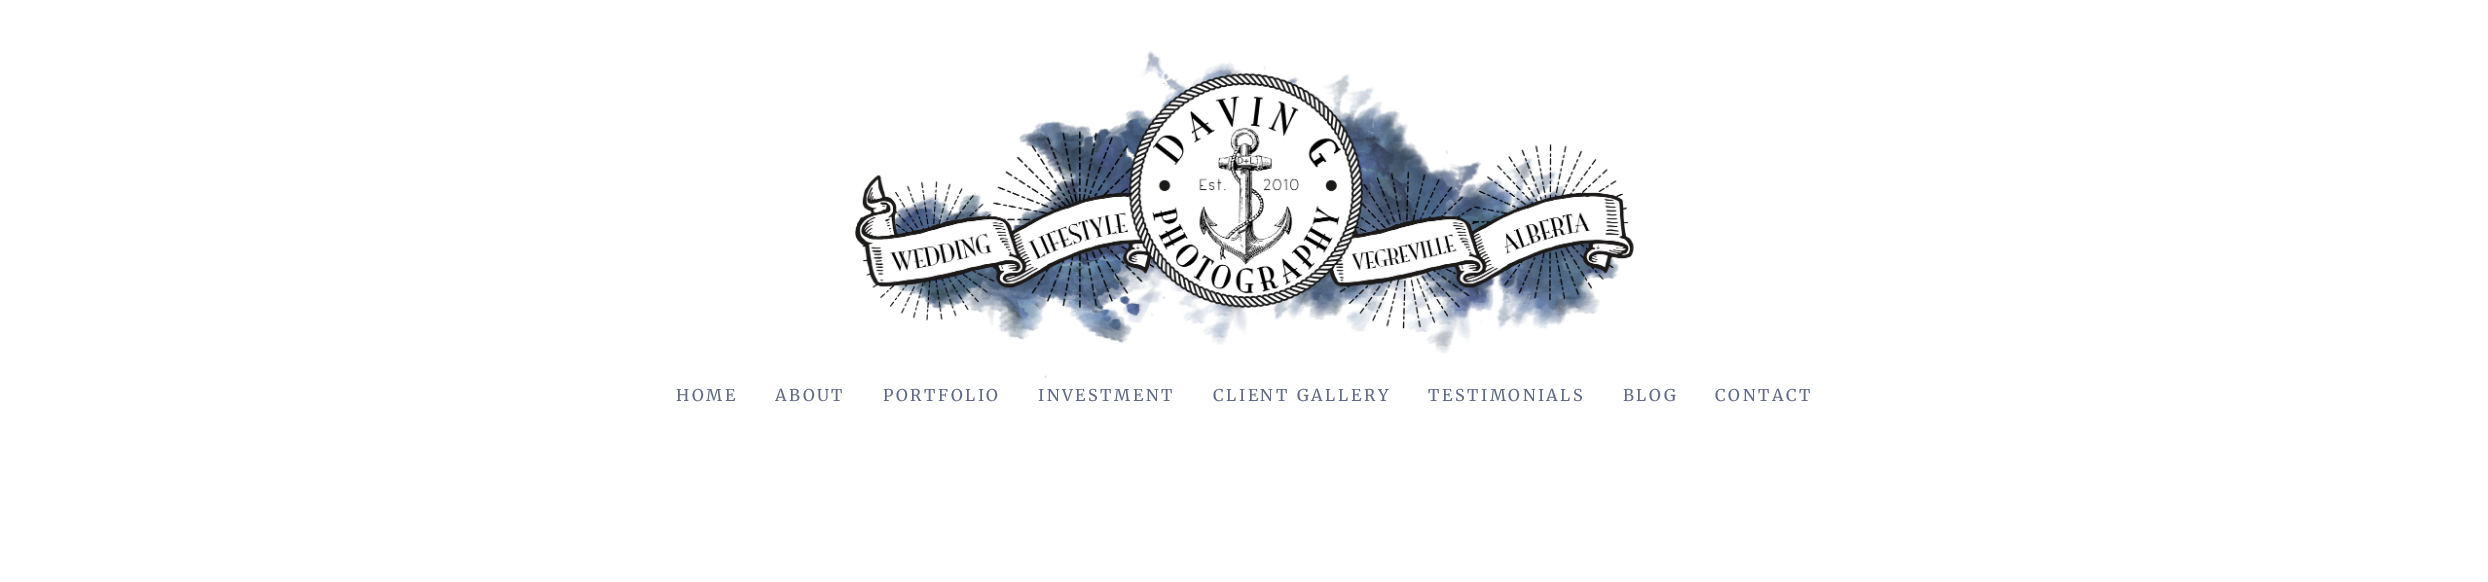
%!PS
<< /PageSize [2488 582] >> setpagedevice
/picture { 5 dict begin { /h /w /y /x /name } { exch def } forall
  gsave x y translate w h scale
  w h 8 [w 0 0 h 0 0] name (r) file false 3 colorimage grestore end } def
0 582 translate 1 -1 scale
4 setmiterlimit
1 setgray
0 0 2488 582 rectfill
(img1.rgb) 855 50 779 328 picture
/Merriweather-Light [16.25 0 0 -16.25 0 0] selectfont
0.376 0.412 0.522 setrgbcolor
676 401 moveto 2.6 0 (HOME) ashow
775 401 moveto 2.6 0 (ABOUT) ashow
883 401 moveto 2.6 0 (PORTFOLIO) ashow
1038 401 moveto 2.6 0 (INVESTMENT) ashow
1213 401 moveto 1 0 32 2.6 0 (CLIENT GALLERY) awidthshow
1428 401 moveto 2.6 0 (TESTIMONIALS) ashow
1623 401 moveto 2.6 0 (BLOG) ashow
1715 401 moveto 2.6 0 (CONTACT) ashow
showpage
